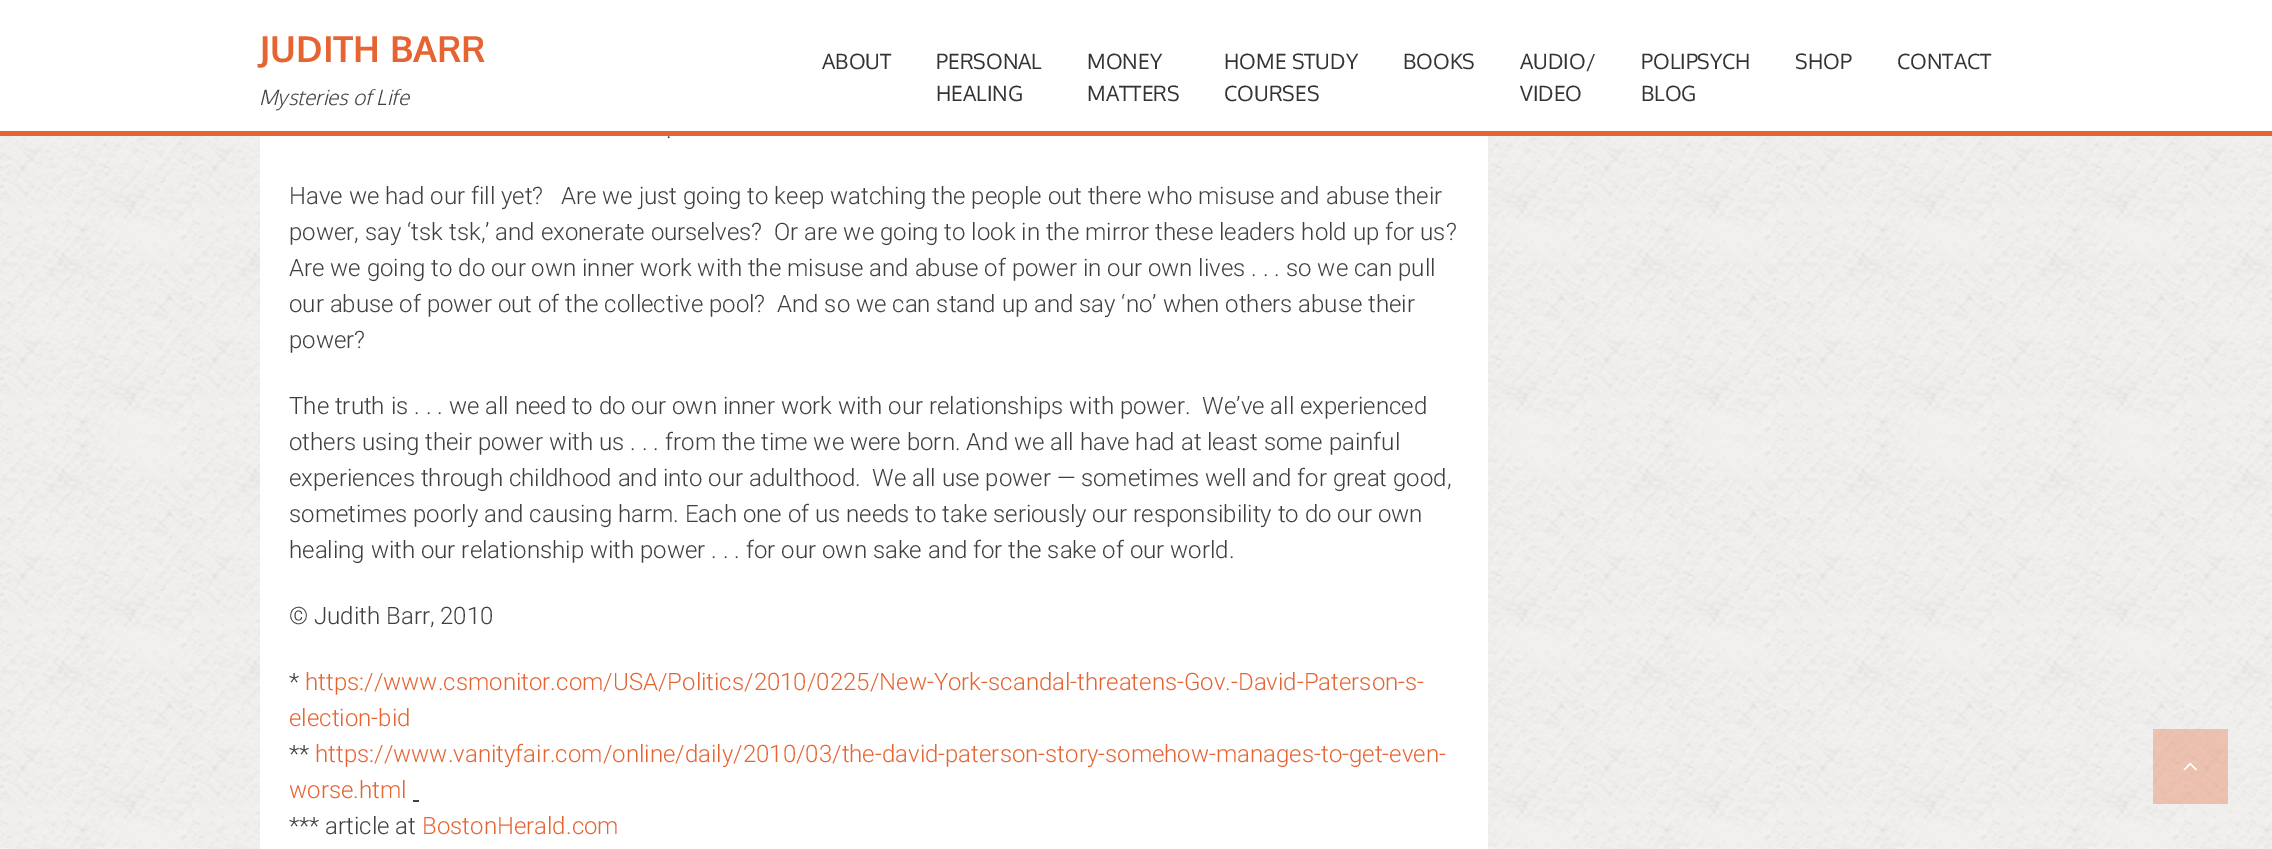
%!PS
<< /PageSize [2272 849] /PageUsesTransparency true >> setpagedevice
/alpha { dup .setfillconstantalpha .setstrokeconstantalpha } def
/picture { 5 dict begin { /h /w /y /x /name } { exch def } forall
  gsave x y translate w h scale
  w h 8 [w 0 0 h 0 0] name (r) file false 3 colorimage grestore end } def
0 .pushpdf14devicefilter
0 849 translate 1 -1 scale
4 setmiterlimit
1 setgray
0 0 2272 849 rectfill
(img1.rgb) 0 136 2272 713 picture
0.902 0.392 0.196 setrgbcolor
0 131 2272 5 rectfill
/Oxygen-Bold [36 0 0 -36 0 0] selectfont
259 62 moveto (JUDITH BARR) show
/Oxygen-LightItalic [21 0 0 -21 0 0] selectfont
0.251 setgray
259 105 moveto (Mysteries of Life) show
/Oxygen-Regular [21 0 0 -21 0 0] selectfont
0.2 setgray
822 69 moveto (ABOUT) show
936 69 moveto (PERSONAL) show
936 101 moveto (HEALING) show
1087 69 moveto (MONEY) show
1087 101 moveto (MATTERS) show
1224 69 moveto (HOME STUDY) show
1224 101 moveto (COURSES) show
1403 69 moveto (BOOKS) show
1520 69 moveto (AUDIO/) show
1520 101 moveto (VIDEO) show
1641 69 moveto (POLIPSYCH) show
1641 101 moveto (BLOG) show
1795 69 moveto (SHOP) show
1897 69 moveto (CONTACT) show
1 setgray
260 136 1228 713 rectfill
/Roboto-Light [24 0 0 -24 0 0] selectfont
0.251 setgray
666 138 moveto (.) show
289 204 moveto (Have we had our fill yet?   Are we just going to keep watching the people out there who misuse and abuse their) show
289 240 moveto (power, say ‘tsk tsk,’ and exonerate ourselves?  Or are we going to look in the mirror these leaders hold up for us?) show
289 276 moveto (Are we going to do our own inner work with the misuse and abuse of power in our own lives . . . so we can pull) show
289 312 moveto (our abuse of power out of the collective pool?  And so we can stand up and say ‘no’ when others abuse their) show
289 348 moveto (power?) show
289 414 moveto (The truth is . . . we all need to do our own inner work with our relationships with power.  We’ve all experienced) show
289 450 moveto (others using their power with us . . . from the time we were born. And we all have had at least some painful) show
289 486 moveto (experiences through childhood and into our adulthood.  We all use power — sometimes well and for great good,) show
289 522 moveto (sometimes poorly and causing harm. Each one of us needs to take seriously our responsibility to do our own) show
289 558 moveto (healing with our relationship with power . . . for our own sake and for the sake of our world.) show
289 624 moveto (© Judith Barr, 2010) show
289 690 moveto (*) show
0.902 0.392 0.196 setrgbcolor
305 690 moveto (https://www.csmonitor.com/USA/Politics/2010/0225/New-York-scandal-threatens-Gov.-David-Paterson-s-) show
289 726 moveto (election-bid) show
0.251 setgray
289 762 moveto (**) show
0.902 0.392 0.196 setrgbcolor
315 762 moveto (https://www.vanityfair.com/online/daily/2010/03/the-david-paterson-story-somehow-manages-to-get-even-) show
289 798 moveto (worse.html) show
0.251 setgray
413 800 6 2 rectfill
289 834 moveto (*** article at) show
0.902 0.392 0.196 setrgbcolor
422 834 moveto (BostonHerald.com) show
0.33 alpha
2153 729 75 75 rectfill
1 alpha
(img2.rgb) 2183 762 14 9 picture
.poppdf14devicefilter showpage
